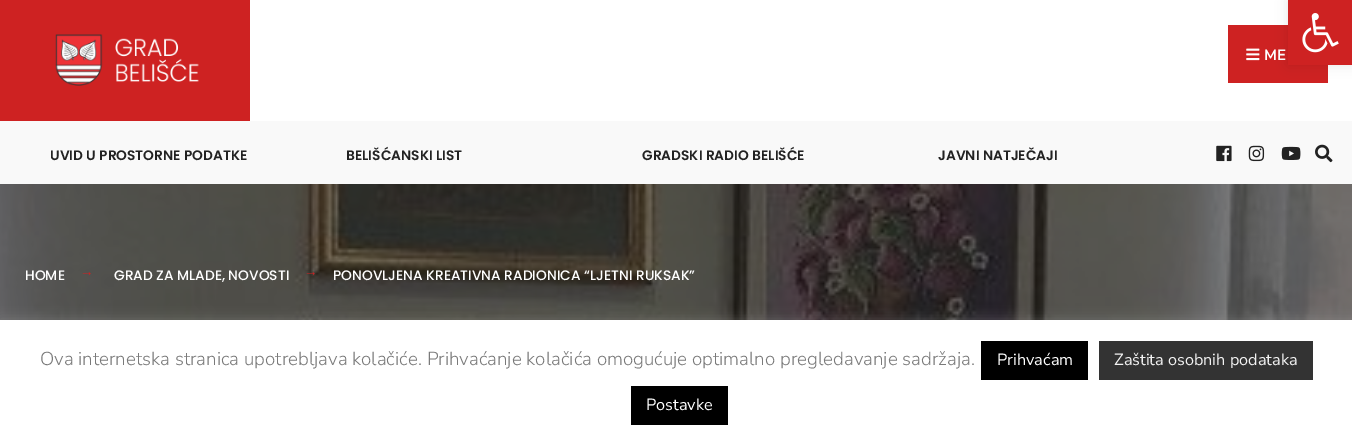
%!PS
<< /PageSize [1352 440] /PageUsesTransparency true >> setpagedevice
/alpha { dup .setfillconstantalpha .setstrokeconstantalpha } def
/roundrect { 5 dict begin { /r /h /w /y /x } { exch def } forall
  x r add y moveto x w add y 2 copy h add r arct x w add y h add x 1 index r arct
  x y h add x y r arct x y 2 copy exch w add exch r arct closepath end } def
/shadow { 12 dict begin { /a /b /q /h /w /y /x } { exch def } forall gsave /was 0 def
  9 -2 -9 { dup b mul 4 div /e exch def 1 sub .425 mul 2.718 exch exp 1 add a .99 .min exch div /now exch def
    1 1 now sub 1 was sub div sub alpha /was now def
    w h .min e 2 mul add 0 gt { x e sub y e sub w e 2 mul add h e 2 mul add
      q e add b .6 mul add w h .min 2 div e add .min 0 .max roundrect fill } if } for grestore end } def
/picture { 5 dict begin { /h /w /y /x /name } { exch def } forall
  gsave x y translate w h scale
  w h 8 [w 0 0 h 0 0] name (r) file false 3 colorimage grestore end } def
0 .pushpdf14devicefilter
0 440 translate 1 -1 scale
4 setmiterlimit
0.118 setgray
0 0 1352 440 rectfill
1 setgray
250 0 1102 121 rectfill
0.808 0.133 0.133 setrgbcolor
0 0 250 121 rectfill
(img1.rgb) 55 34 144 52 picture
1228 25 100 58 rectfill
(img2.rgb) 1246 48 14 13 picture
/NunitoSans-Bold [15 0 0 -15 0 0] selectfont
1 setgray
1264 60 moveto (ME) show
0.976 setgray
0 121 1352 63 rectfill
/Poppins-SemiBold [13.75 0 0 -13.75 0 0] selectfont
0.133 setgray
50 160 moveto (UVID U PROSTORNE PODATKE) show
346 160 moveto (BELIŠĆANSKI LIST) show
642 160 moveto (GRADSKI RADIO BELIŠĆE) show
938 160 moveto (JAVNI NATJEČAJI) show
(img3.rgb) 1216 145 16 17 picture
(img4.rgb) 1248 145 17 17 picture
(img5.rgb) 1281 146 20 14 picture
(img6.rgb) 1315 144 18 19 picture
(img7.rgb) 0 184 1352 136 picture
/Poppins-Medium [13.75 0 0 -13.75 0 0] selectfont
1 setgray
25 280 moveto (HOME) show
/LiberationSerif-Regular [13.75 0 0 -13.75 0 0] selectfont
0.808 0.133 0.133 setrgbcolor
80 276 moveto (→) show
/Poppins-Medium [13.75 0 0 -13.75 0 0] selectfont
1 setgray
114 280 moveto (GRAD ZA MLADE, NOVOSTI) show
/LiberationSerif-Regular [13.75 0 0 -13.75 0 0] selectfont
0.808 0.133 0.133 setrgbcolor
304 276 moveto (→) show
/Poppins-Medium [13.75 0 0 -13.75 0 0] selectfont
1 setgray
333 280 moveto (PONOVLJENA KREATIVNA RADIONICA “LJETNI RUKSAK”) show
0 setgray
1288 0 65 65 0 6 0.1 shadow
0.808 0.133 0.133 setrgbcolor
1288 0 64 65 rectfill
(img8.rgb) 1302 13 37 40 picture
0.675 0.671 0.671 setrgbcolor
0 319 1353 120 0 6 0.3 shadow
1 setgray
0 320 1352 120 rectfill
/NunitoSans-Light [18.75 0 0 -18.75 0 0] selectfont
0.478 setgray
40 365 moveto (Ova internetska stranica upotrebljava kolačiće. Prihvaćanje kolačića omogućuje optimalno pregledavanje sadržaja.) show
0 setgray
981 341 107 39 rectfill
/NunitoSans-Regular [16.25 0 0 -16.25 0 0] selectfont
1 setgray
997 365 moveto (Prihvaćam) show
0.2 setgray
1099 341 214 39 rectfill
0.949 setgray
1114 365 moveto (Zaštita osobnih podataka) show
0 setgray
631 386 97 39 rectfill
1 setgray
646 410 moveto (Postavke) show
.poppdf14devicefilter showpage
